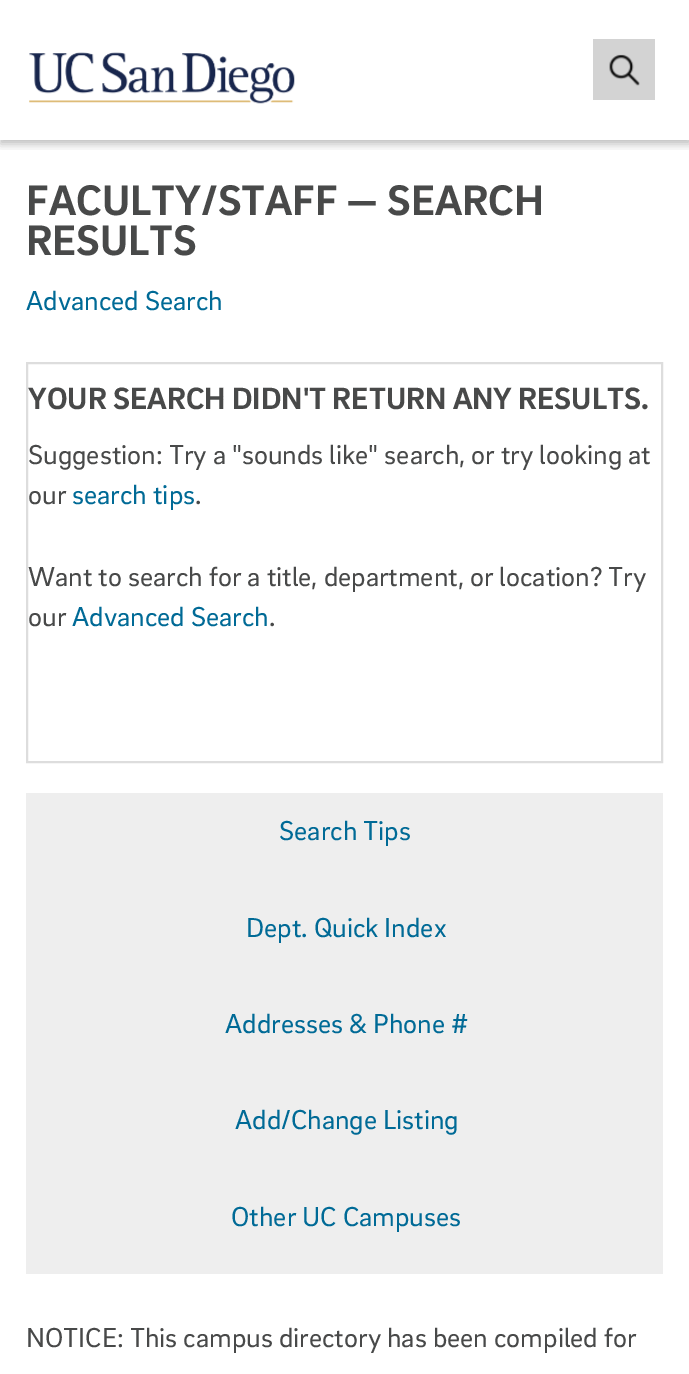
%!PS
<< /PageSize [689 1374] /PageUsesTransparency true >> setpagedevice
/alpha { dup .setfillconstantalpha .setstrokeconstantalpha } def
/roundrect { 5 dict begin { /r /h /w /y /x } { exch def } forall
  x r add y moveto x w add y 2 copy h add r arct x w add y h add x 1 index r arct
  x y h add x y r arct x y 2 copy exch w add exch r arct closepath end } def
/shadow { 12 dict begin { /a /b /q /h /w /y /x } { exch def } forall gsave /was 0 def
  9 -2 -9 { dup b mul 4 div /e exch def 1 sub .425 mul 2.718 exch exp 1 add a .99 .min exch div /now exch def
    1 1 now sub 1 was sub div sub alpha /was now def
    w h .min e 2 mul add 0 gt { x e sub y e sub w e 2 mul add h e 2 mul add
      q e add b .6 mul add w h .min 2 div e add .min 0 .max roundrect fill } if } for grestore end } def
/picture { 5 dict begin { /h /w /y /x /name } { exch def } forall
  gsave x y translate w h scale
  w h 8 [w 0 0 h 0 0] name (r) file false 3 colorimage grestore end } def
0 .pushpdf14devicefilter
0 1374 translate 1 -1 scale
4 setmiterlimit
1 setgray
0 0 689 1374 rectfill
gsave
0 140 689 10 rectclip
0 setgray
0 4 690 140 0 4.5 0.25 shadow
grestore
(img1.rgb) 29 52 266 52 picture
0.827 setgray
593 39 62 61 rectfill
(img2.rgb) 609 54 31 32 picture
/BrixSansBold-Regular [43.75 0 0 -43.75 0 0] selectfont
0.282 0.286 0.286 setrgbcolor
26 215 moveto (FACULTY/STAFF — SEARCH) show
26 255 moveto (RESULTS) show
/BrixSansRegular-Regular [28 0 0 -28 0 0] selectfont
0 0.416 0.588 setrgbcolor
26 310 moveto (Advanced Search) show
0.867 setgray
2 setlinewidth
27 363 635 399 rectstroke
/BrixSansBold-Regular [31.5 0 0 -31.5 0 0] selectfont
0.282 0.286 0.286 setrgbcolor
28 409 moveto (YOUR SEARCH DIDN'T RETURN ANY RESULTS.) show
/BrixSansRegular-Regular [28 0 0 -28 0 0] selectfont
28 464 moveto (Suggestion: Try a "sounds like" search, or try looking at) show
28 504 moveto (our) show
0 0.416 0.588 setrgbcolor
72 504 moveto (search tips) show
0.282 0.286 0.286 setrgbcolor
195 504 moveto (.) show
28 586 moveto (Want to search for a title, department, or location? Try) show
28 626 moveto (our) show
0 0.416 0.588 setrgbcolor
72 626 moveto (Advanced Search) show
0.282 0.286 0.286 setrgbcolor
269 626 moveto (.) show
0.933 setgray
26 793 637 481 rectfill
0 0.416 0.588 setrgbcolor
279 840 moveto (Search Tips) show
246 937 moveto (Dept. Quick Index) show
225 1033 moveto (Addresses & Phone #) show
235 1129 moveto (Add/Change Listing) show
231 1226 moveto (Other UC Campuses) show
0.282 0.286 0.286 setrgbcolor
26 1347 moveto (NOTICE: This campus directory has been compiled for) show
.poppdf14devicefilter showpage
